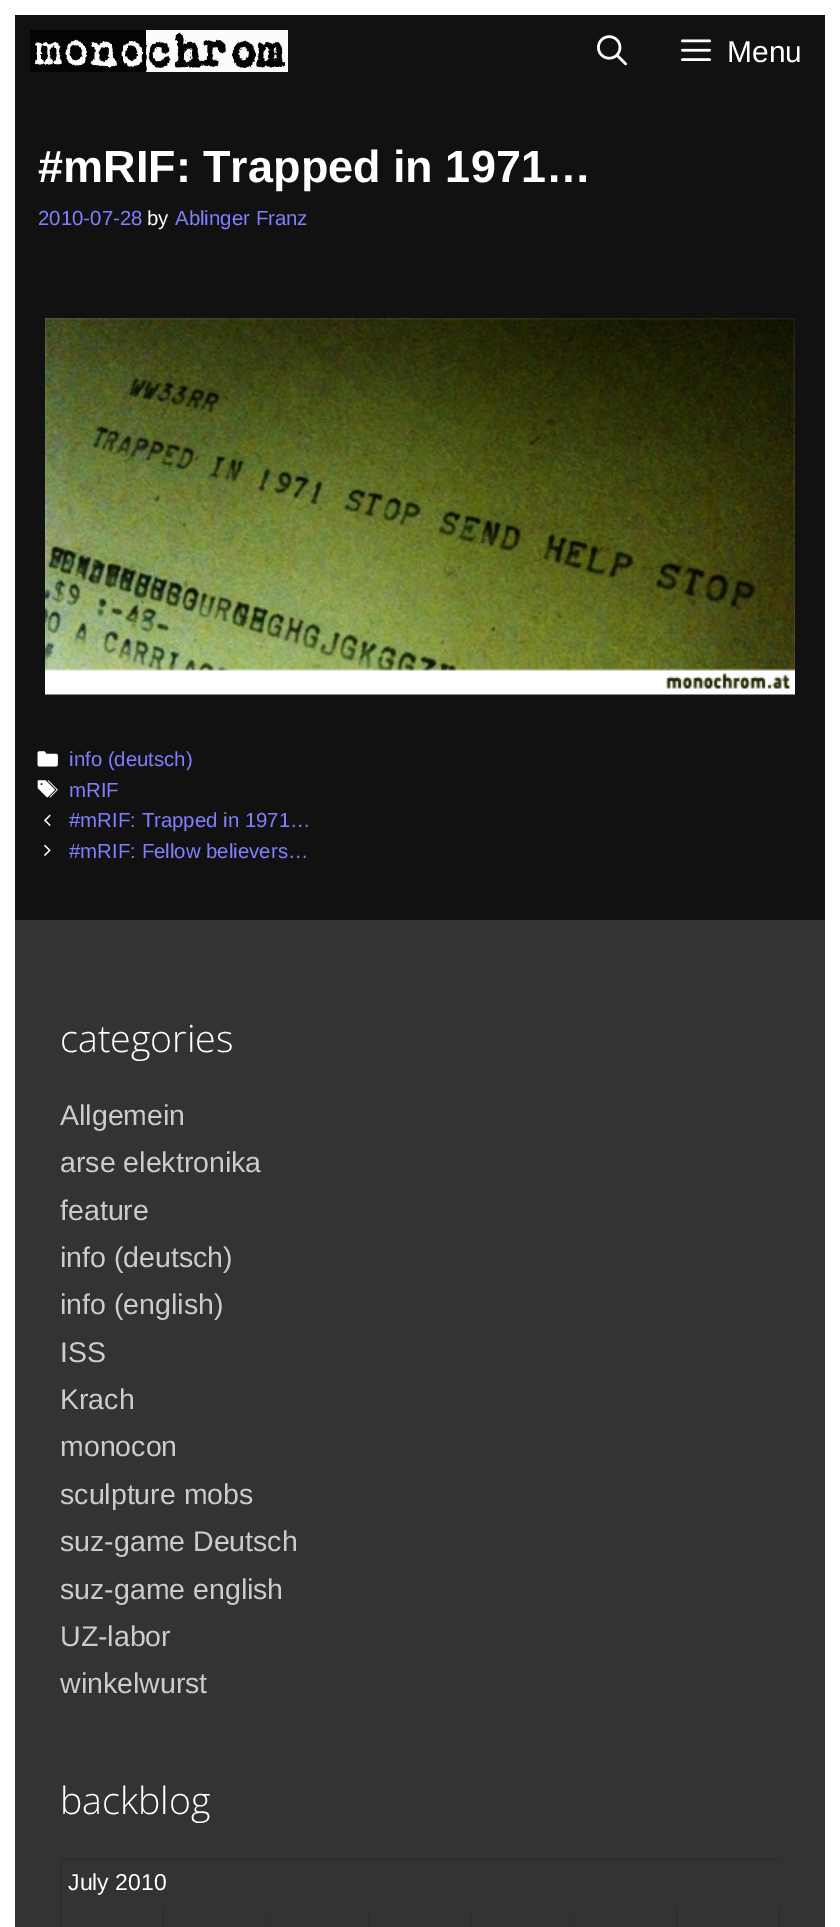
%!PS
<< /PageSize [840 1927] >> setpagedevice
/picture { 5 dict begin { /h /w /y /x /name } { exch def } forall
  gsave x y translate w h scale
  w h 8 [w 0 0 h 0 0] name (r) file false 3 colorimage grestore end } def
0 1927 translate 1 -1 scale
4 setmiterlimit
1 setgray
0 0 840 1927 rectfill
0.067 setgray
15 15 810 905 rectfill
(img1.rgb) 30 30 258 42 picture
(img2.rgb) 597 35 30 31 picture
(img3.rgb) 681 39 30 22 picture
/LiberationSans-Regular [30 0 0 -30 0 0] selectfont
1 setgray
727 62 moveto (Menu) show
/LiberationSans-Bold [45 0 0 -45 0 0] selectfont
38 182 moveto (#mRIF: Trapped in 1971…) show
/LiberationSans-Regular [20.4 0 0 -20.4 0 0] selectfont
0.502 0.502 1 setrgbcolor
38 225 moveto (2010-07-28) show
1 setgray
147 225 moveto (by) show
0.502 0.502 1 setrgbcolor
175 225 moveto (Ablinger Franz) show
(img4.rgb) 45 318 750 377 picture
(img5.rgb) 37 751 21 16 picture
69 766 moveto (info \(deutsch\)) show
(img6.rgb) 37 780 21 18 picture
69 797 moveto (mRIF) show
(img7.rgb) 44 814 7 12 picture
69 827 moveto (#mRIF: Trapped in 1971…) show
(img8.rgb) 44 844 7 12 picture
69 858 moveto (#mRIF: Fellow believers…) show
0.2 setgray
15 920 810 1007 rectfill
/OpenSans-Light [37.5 0 0 -37.5 0 0] selectfont
1 setgray
60 1052 moveto (categories) show
/LiberationSans-Regular [28.5 0 0 -28.5 0 0] selectfont
0.8 setgray
60 1125 moveto (Allgemein) show
60 1172 moveto (arse elektronika) show
60 1220 moveto (feature) show
60 1267 moveto (info \(deutsch\)) show
60 1314 moveto (info \(english\)) show
60 1362 moveto (ISS) show
60 1409 moveto (Krach) show
60 1456 moveto (monocon) show
60 1504 moveto (sculpture mobs) show
60 1551 moveto (suz-game Deutsch) show
60 1599 moveto (suz-game english) show
60 1646 moveto (UZ-labor) show
60 1693 moveto (winkelwurst) show
/OpenSans-Light [37.5 0 0 -37.5 0 0] selectfont
1 setgray
60 1814 moveto (backblog) show
0.18 setgray
newpath 60 1858 moveto 780 1858 lineto 780 1860 lineto 62 1860 lineto closepath fill
newpath 60 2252 moveto 60 1858 lineto 62 1860 lineto 62 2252 lineto closepath fill
/LiberationSans-Regular [23 0 0 -23 0 0] selectfont
1 setgray
68 1890 moveto (July 2010) show
0.18 setgray
newpath 164 1906 moveto 164 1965 lineto 162 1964 lineto 162 1906 lineto closepath fill
newpath 267 1906 moveto 267 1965 lineto 266 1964 lineto 266 1906 lineto closepath fill
newpath 369 1906 moveto 369 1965 lineto 368 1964 lineto 368 1906 lineto closepath fill
newpath 472 1906 moveto 472 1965 lineto 471 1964 lineto 471 1906 lineto closepath fill
newpath 574 1906 moveto 574 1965 lineto 573 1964 lineto 573 1906 lineto closepath fill
newpath 678 1906 moveto 678 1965 lineto 676 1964 lineto 676 1906 lineto closepath fill
newpath 780 1906 moveto 780 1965 lineto 778 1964 lineto 778 1906 lineto closepath fill
showpage
